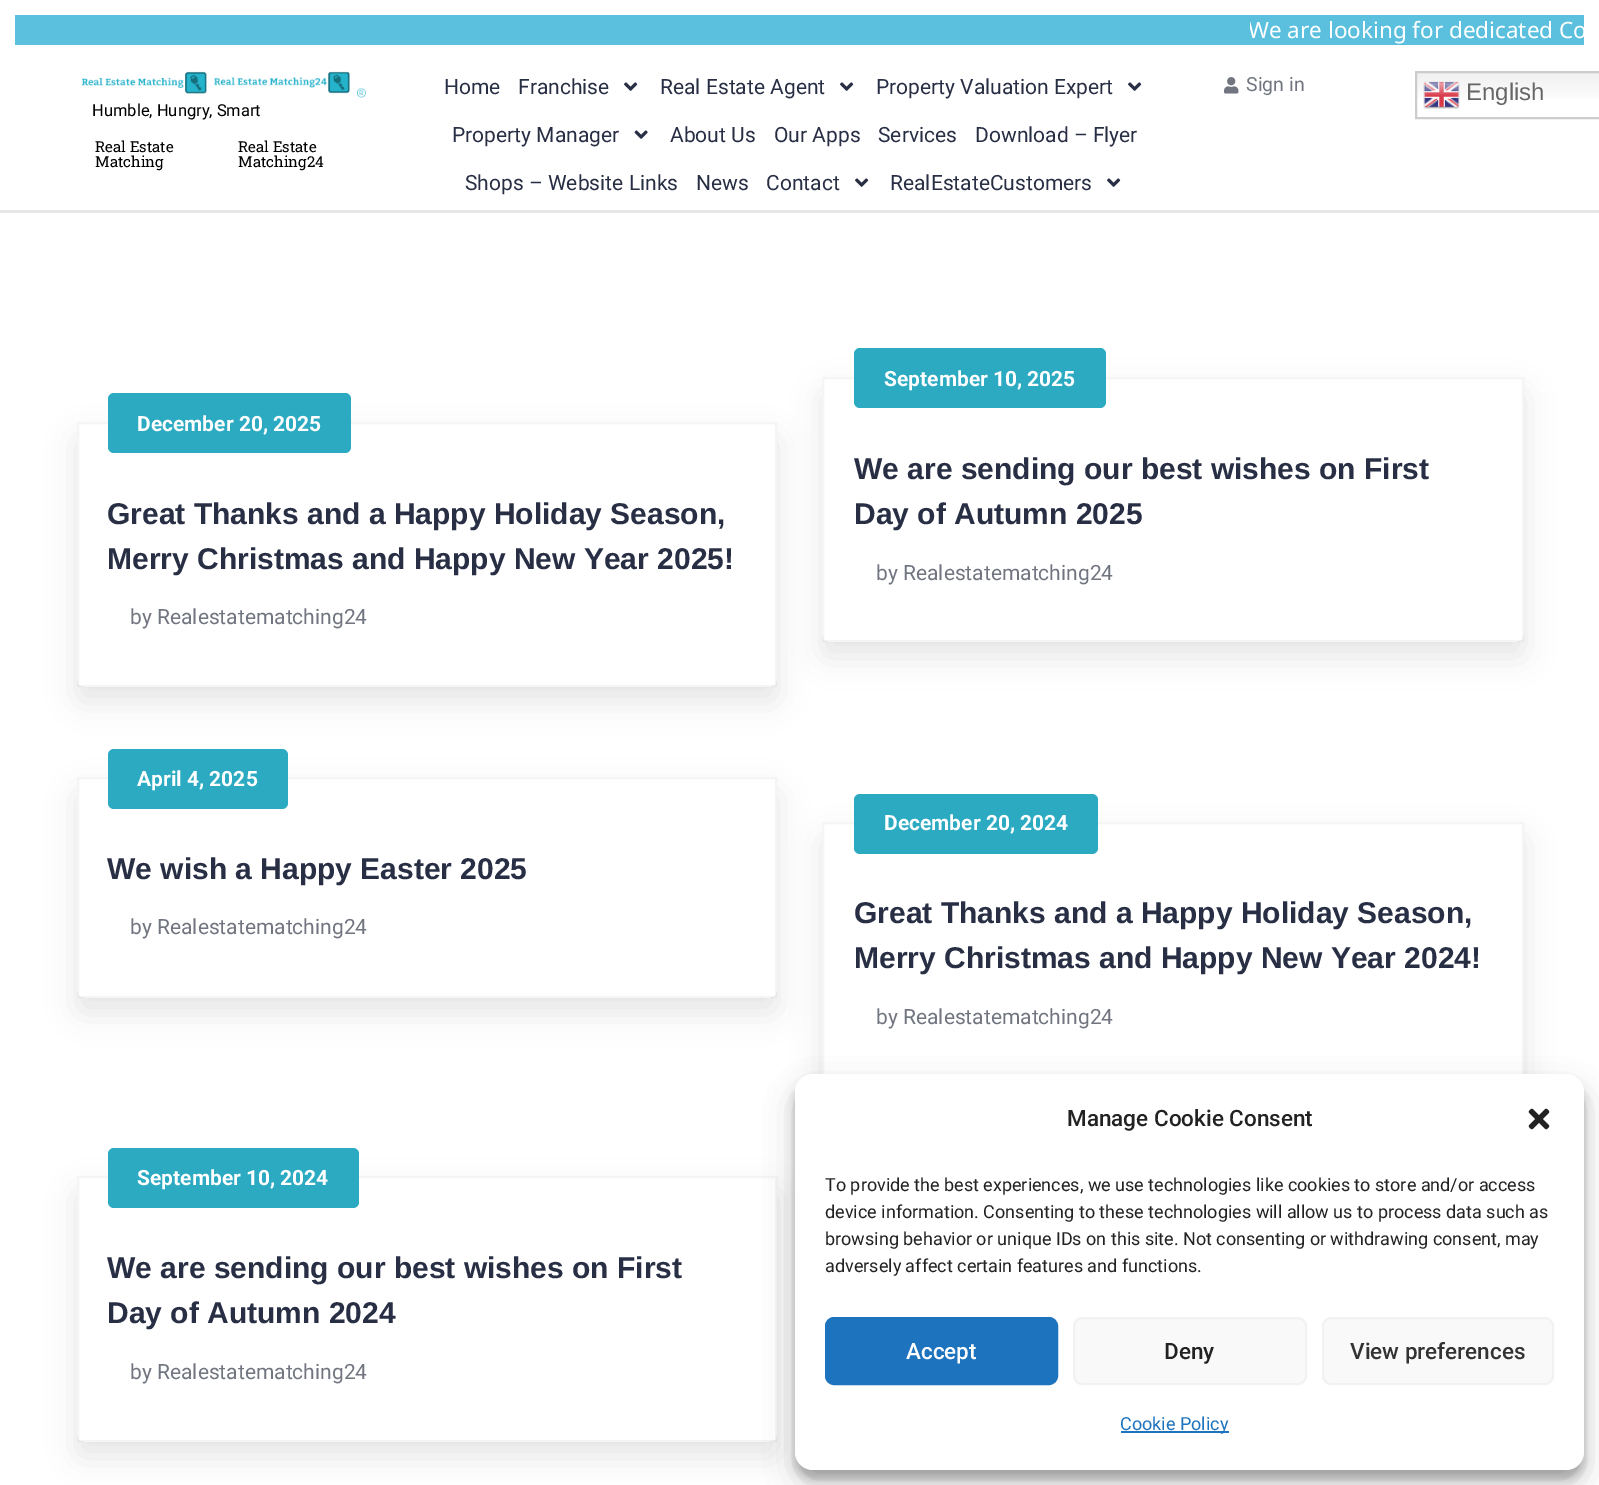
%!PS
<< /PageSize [1599 1485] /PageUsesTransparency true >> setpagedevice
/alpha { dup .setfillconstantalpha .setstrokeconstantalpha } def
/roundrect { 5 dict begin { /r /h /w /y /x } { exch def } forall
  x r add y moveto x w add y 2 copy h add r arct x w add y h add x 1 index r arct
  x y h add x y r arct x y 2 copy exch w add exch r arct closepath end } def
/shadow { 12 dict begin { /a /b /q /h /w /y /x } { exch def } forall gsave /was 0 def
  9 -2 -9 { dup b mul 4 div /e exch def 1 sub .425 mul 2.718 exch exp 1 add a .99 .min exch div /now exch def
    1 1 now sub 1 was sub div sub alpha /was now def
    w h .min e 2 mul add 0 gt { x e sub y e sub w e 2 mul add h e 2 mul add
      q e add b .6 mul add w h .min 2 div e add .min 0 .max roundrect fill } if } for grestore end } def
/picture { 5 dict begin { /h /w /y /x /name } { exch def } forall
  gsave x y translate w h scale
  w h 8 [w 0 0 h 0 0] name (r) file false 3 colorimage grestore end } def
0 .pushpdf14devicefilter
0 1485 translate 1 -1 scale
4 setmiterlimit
1 setgray
0 0 1599 1485 rectfill
0.357 0.753 0.871 setrgbcolor
15 15 1569 30 rectfill
gsave
1250 15 334 30 rectclip
/NotoSans-Regular [22.5 0 0 -22.5 0 0] selectfont
1 setgray
1248 38 moveto (We are looking for dedicated Co) show
grestore
0.906 setgray
0 210 1599 3 rectfill
(img1.rgb) 82 71 284 27 picture
/Roboto-Regular [16.5 0 0 -16.5 0 0] selectfont
0 setgray
92 116 moveto (Humble, Hungry, Smart) show
/RobotoSlab-Regular [15 0 0 -15 0 0] selectfont
95 152 moveto (Real Estate) show
95 167 moveto (Matching) show
238 152 moveto (Real Estate) show
238 167 moveto (Matching24) show
/Roboto-Regular [21 0 0 -21 0 0] selectfont
0.157 0.184 0.267 setrgbcolor
444 94 moveto (Home) show
518 94 moveto (Franchise) show
(img2.rgb) 624 82 14 9 picture
660 94 moveto (Real Estate Agent) show
(img2.rgb) 840 82 14 9 picture
876 94 moveto (Property Valuation Expert) show
(img2.rgb) 1128 82 14 9 picture
452 142 moveto (Property Manager) show
(img3.rgb) 634 130 14 9 picture
670 142 moveto (About Us) show
774 142 moveto (Our Apps) show
878 142 moveto (Services) show
975 142 moveto (Download – Flyer) show
465 190 moveto (Shops – Website Links) show
696 190 moveto (News) show
766 190 moveto (Contact) show
(img2.rgb) 855 178 14 9 picture
890 190 moveto (RealEstateCustomers) show
(img2.rgb) 1107 178 14 9 picture
(img4.rgb) 1224 77 15 17 picture
/Roboto-Regular [19.5 0 0 -19.5 0 0] selectfont
0.443 0.459 0.502 setrgbcolor
1246 91 moveto (Sign in) show
gsave newpath 1417 73 moveto 1599 73 lineto 1599 99 lineto 1417 99 lineto closepath clip newpath
<< /ShadingType 2 /ColorSpace /DeviceRGB /Coords [1544 70 1544 119] /Extend [true true] /Function << /FunctionType 3 /Domain [0 1] /Functions [<< /FunctionType 2 /Domain [0 1] /C0 [0.937 0.937 0.937] /C1 [1 1 1] /N 1 >> << /FunctionType 2 /Domain [0 1] /C0 [1 1 1] /C1 [1 1 1] /N 1 >>] /Bounds [0.7] /Encode [0 1 0 1] >> >> shfill grestore
0.8 setgray
2 setlinewidth
1416 72 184 46 rectstroke
(img5.rgb) 1423 81 37 28 picture
/LiberationSans-Regular [24 0 0 -24 0 0] selectfont
0.4 setgray
1466 100 moveto (English) show
gsave
newpath 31 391 moveto 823 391 lineto 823 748 lineto 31 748 lineto closepath 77 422 moveto 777 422 lineto 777 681 lineto 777 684.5 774.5 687 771 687 curveto 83 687 lineto 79.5 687 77 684.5 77 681 curveto closepath eoclip newpath
0 setgray
77 437 700 265 6 15 0.1 shadow
grestore
0.04 alpha
0 setgray
78 423 698 263 rectstroke
1 alpha
0.169 0.667 0.761 setrgbcolor
108 393 243 60 6 roundrect fill
/Roboto-Bold [21 0 0 -21 0 0] selectfont
1 setgray
137 431 moveto (December 20, 2025) show
/LiberationSans-Bold [30 0 0 -30 0 0] selectfont
0.157 0.184 0.267 setrgbcolor
107 524 moveto (Great Thanks and a Happy Holiday Season,) show
107 569 moveto (Merry Christmas and Happy New Year 2025!) show
/Roboto-Regular [21 0 0 -21 0 0] selectfont
0.443 0.459 0.502 setrgbcolor
130 624 moveto (by Realestatematching24) show
gsave
newpath 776 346 moveto 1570 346 lineto 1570 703 lineto 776 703 lineto closepath 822 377 moveto 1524 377 lineto 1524 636 lineto 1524 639.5 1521.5 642 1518 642 curveto 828 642 lineto 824.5 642 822 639.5 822 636 curveto closepath eoclip newpath
0 setgray
822 392 702 265 6 15 0.1 shadow
grestore
0.04 alpha
0 setgray
823 378 700 263 rectstroke
1 alpha
0.169 0.667 0.761 setrgbcolor
854 348 252 60 6 roundrect fill
/Roboto-Bold [21 0 0 -21 0 0] selectfont
1 setgray
884 386 moveto (September 10, 2025) show
/LiberationSans-Bold [30 0 0 -30 0 0] selectfont
0.157 0.184 0.267 setrgbcolor
854 479 moveto (We are sending our best wishes on First) show
854 524 moveto (Day of Autumn 2025) show
/Roboto-Regular [21 0 0 -21 0 0] selectfont
0.443 0.459 0.502 setrgbcolor
876 580 moveto (by Realestatematching24) show
gsave
newpath 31 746 moveto 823 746 lineto 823 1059 lineto 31 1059 lineto closepath 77 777 moveto 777 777 lineto 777 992 lineto 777 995.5 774.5 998 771 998 curveto 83 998 lineto 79.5 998 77 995.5 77 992 curveto closepath eoclip newpath
0 setgray
77 792 700 221 6 15 0.1 shadow
grestore
0.04 alpha
0 setgray
78 778 698 219 rectstroke
1 alpha
0.169 0.667 0.761 setrgbcolor
108 749 180 60 6 roundrect fill
/Roboto-Bold [21 0 0 -21 0 0] selectfont
1 setgray
137 786 moveto (April 4, 2025) show
/LiberationSans-Bold [30 0 0 -30 0 0] selectfont
0.157 0.184 0.267 setrgbcolor
107 879 moveto (We wish a Happy Easter 2025) show
/Roboto-Regular [21 0 0 -21 0 0] selectfont
0.443 0.459 0.502 setrgbcolor
130 934 moveto (by Realestatematching24) show
gsave
newpath 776 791 moveto 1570 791 lineto 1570 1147 lineto 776 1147 lineto closepath 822 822 moveto 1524 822 lineto 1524 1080 lineto 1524 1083.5 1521.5 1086 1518 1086 curveto 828 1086 lineto 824.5 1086 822 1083.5 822 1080 curveto closepath eoclip newpath
0 setgray
822 837 702 264 6 15 0.1 shadow
grestore
0.04 alpha
0 setgray
823 823 700 262 rectstroke
1 alpha
0.169 0.667 0.761 setrgbcolor
854 794 244 60 6 roundrect fill
/Roboto-Bold [21 0 0 -21 0 0] selectfont
1 setgray
884 830 moveto (December 20, 2024) show
/LiberationSans-Bold [30 0 0 -30 0 0] selectfont
0.157 0.184 0.267 setrgbcolor
854 923 moveto (Great Thanks and a Happy Holiday Season,) show
854 968 moveto (Merry Christmas and Happy New Year 2024!) show
/Roboto-Regular [21 0 0 -21 0 0] selectfont
0.443 0.459 0.502 setrgbcolor
876 1024 moveto (by Realestatematching24) show
gsave
newpath 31 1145 moveto 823 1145 lineto 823 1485 lineto 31 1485 lineto closepath 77 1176 moveto 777 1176 lineto 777 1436 lineto 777 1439.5 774.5 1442 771 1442 curveto 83 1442 lineto 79.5 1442 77 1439.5 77 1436 curveto closepath eoclip newpath
0 setgray
77 1191 700 266 6 15 0.1 shadow
grestore
0.04 alpha
0 setgray
78 1177 698 264 rectstroke
1 alpha
0.169 0.667 0.761 setrgbcolor
108 1148 251 60 6 roundrect fill
/Roboto-Bold [21 0 0 -21 0 0] selectfont
1 setgray
137 1185 moveto (September 10, 2024) show
/LiberationSans-Bold [30 0 0 -30 0 0] selectfont
0.157 0.184 0.267 setrgbcolor
107 1278 moveto (We are sending our best wishes on First) show
107 1323 moveto (Day of Autumn 2024) show
/Roboto-Regular [21 0 0 -21 0 0] selectfont
0.443 0.459 0.502 setrgbcolor
130 1379 moveto (by Realestatematching24) show
0 setgray
795 1083 789 396 18 4.5 0.23 shadow
795 1089 789 396 18 15 0.19 shadow
1 setgray
795 1074 789 396 18 roundrect fill
/Roboto-Medium [22.5 0 0 -22.5 0 0] selectfont
0.133 setgray
1067 1126 moveto (Manage Cookie Consent) show
(img6.rgb) 1528 1108 22 22 picture
/Roboto-Regular [18 0 0 -18 0 0] selectfont
825 1191 moveto (To provide the best experiences, we use technologies like cookies to store and/or access) show
825 1218 moveto (device information. Consenting to these technologies will allow us to process data such as) show
825 1245 moveto (browsing behavior or unique IDs on this site. Not consenting or withdrawing consent, may) show
825 1272 moveto (adversely affect certain features and functions.) show
0.118 0.451 0.745 setrgbcolor
826 1318 231 66 8 roundrect gsave fill grestore
stroke
/Roboto-Medium [22.5 0 0 -22.5 0 0] selectfont
1 setgray
906 1359 moveto (Accept) show
0.976 setgray
1074 1318 232 66 8 roundrect gsave fill grestore
0.949 setgray
stroke
0.133 setgray
1164 1359 moveto (Deny) show
0.976 setgray
1323 1318 230 66 8 roundrect gsave fill grestore
0.949 setgray
stroke
0.2 setgray
1350 1359 moveto (View preferences) show
0.118 0.451 0.745 setrgbcolor
1121 1431 108 2 rectfill
/Roboto-Regular [18 0 0 -18 0 0] selectfont
1120 1430 moveto (Cookie Policy) show
.poppdf14devicefilter showpage
